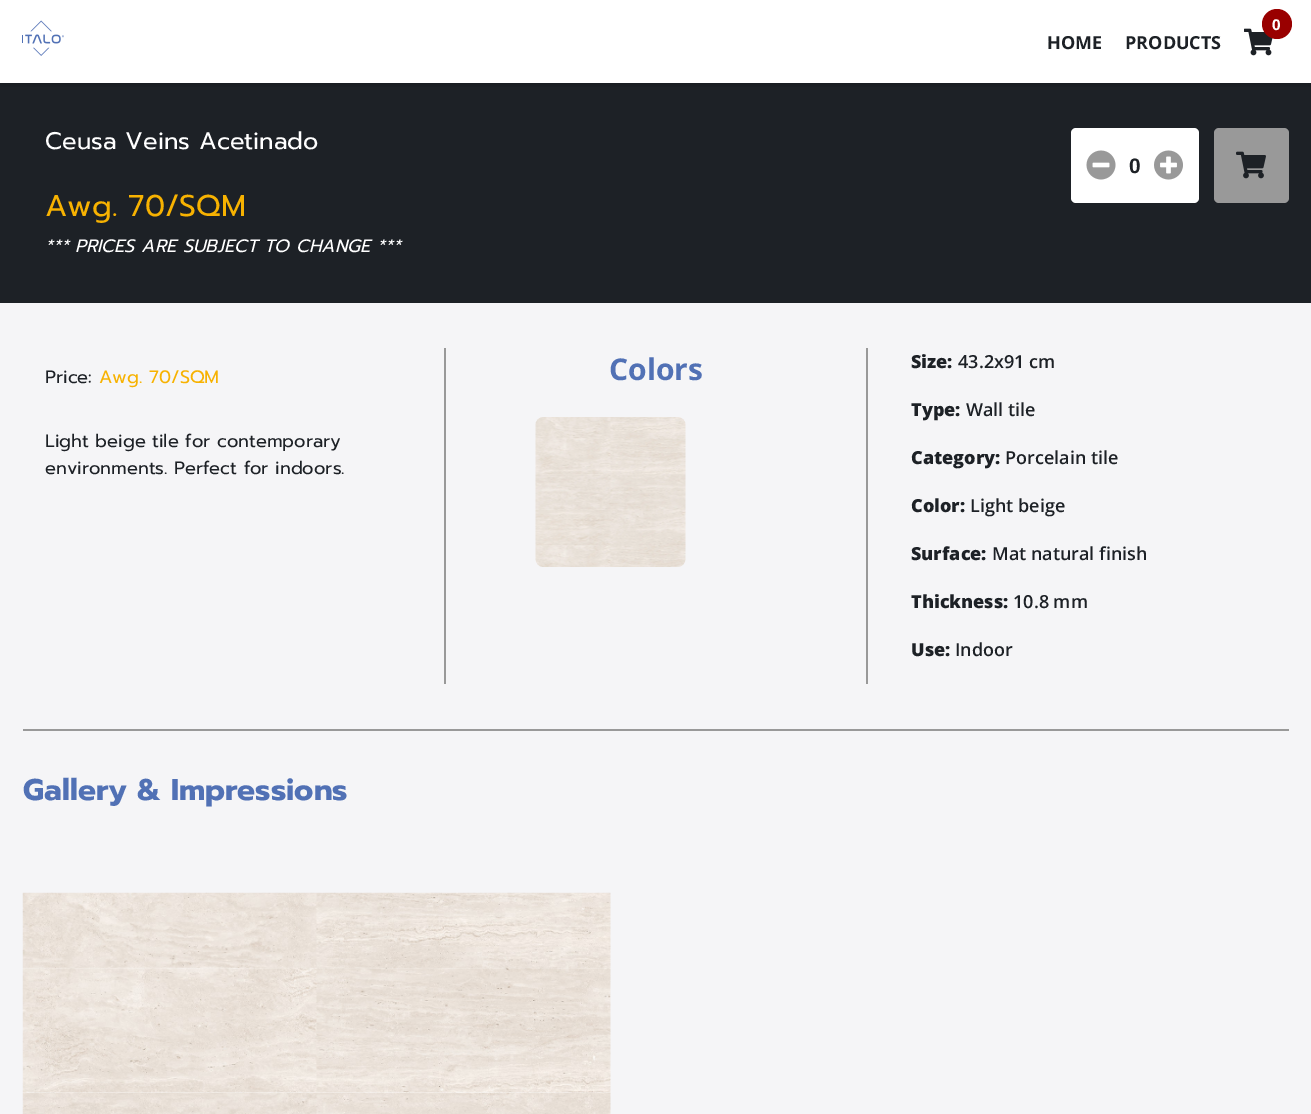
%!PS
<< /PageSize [1311 1114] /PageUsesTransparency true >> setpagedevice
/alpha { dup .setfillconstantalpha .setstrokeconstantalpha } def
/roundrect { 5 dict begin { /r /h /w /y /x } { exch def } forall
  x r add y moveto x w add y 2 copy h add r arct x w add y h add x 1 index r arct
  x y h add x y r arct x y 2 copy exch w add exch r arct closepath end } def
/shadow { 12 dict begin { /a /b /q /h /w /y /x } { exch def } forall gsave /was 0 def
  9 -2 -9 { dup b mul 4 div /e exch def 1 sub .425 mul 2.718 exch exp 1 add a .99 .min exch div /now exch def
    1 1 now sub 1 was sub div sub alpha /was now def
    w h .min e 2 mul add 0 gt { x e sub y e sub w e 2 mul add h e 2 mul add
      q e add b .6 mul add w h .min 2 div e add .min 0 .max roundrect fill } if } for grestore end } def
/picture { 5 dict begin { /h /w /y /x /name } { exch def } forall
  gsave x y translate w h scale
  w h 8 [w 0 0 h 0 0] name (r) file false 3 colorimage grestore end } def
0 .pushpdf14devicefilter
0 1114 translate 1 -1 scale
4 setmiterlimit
0.961 0.961 0.969 setrgbcolor
0 0 1311 1114 rectfill
0.114 0.129 0.149 setrgbcolor
0 83 1311 220 rectfill
0 setgray
0 3 1311 83 0 2 0.16 shadow
1 setgray
0 0 1311 83 rectfill
(img1.rgb) 22 20 42 36 picture
(img2.rgb) 1244 28 29 28 picture
0.6 0 0 setrgbcolor
newpath 1277 24 15 0 360 arc closepath fill
/OpenSans-Bold [15 0 0 -15 0 0] selectfont
1 setgray
1272 30 moveto (0) show
/OpenSans-Bold [18 0 0 -18 0 0] selectfont
0.114 0.129 0.149 setrgbcolor
1047 49 moveto (HOME) show
1125 49 moveto (PRODUCTS) show
/Prompt-Regular [24 0 0 -24 0 0] selectfont
1 setgray
45 149 moveto (Ceusa Veins Acetinado) show
/Prompt-Regular [30 0 0 -30 0 0] selectfont
0.969 0.698 0.004 setrgbcolor
45 216 moveto (Awg. 70/SQM) show
/Prompt-Italic [18 0 0 -18 0 0] selectfont
1 setgray
45 252 moveto (*** PRICES ARE SUBJECT TO CHANGE ***) show
1071 128 128 75 5 roundrect fill
(img3.rgb) 1086 150 30 30 picture
/LiberationSans-Bold [21 0 0 -21 0 0] selectfont
0.114 0.129 0.149 setrgbcolor
1129 173 moveto (0) show
(img4.rgb) 1154 150 29 30 picture
0.6 setgray
1214 128 75 75 5 roundrect fill
(img5.rgb) 1236 151 30 28 picture
23 729 1266 2 rectfill
/Prompt-Regular [18 0 0 -18 0 0] selectfont
0.114 0.129 0.149 setrgbcolor
45 383 moveto (Price:) show
0.969 0.698 0.004 setrgbcolor
99 383 moveto (Awg. 70/SQM) show
0.114 0.129 0.149 setrgbcolor
45 447 moveto (Light beige tile for contemporary) show
45 474 moveto (environments. Perfect for indoors.) show
0.6 setgray
866 348 2 336 rectfill
444 348 2 336 rectfill
/OpenSans-Bold [30 0 0 -30 0 0] selectfont
0.318 0.443 0.71 setrgbcolor
609 380 moveto (Colors) show
(img6.rgb) 535 417 151 150 picture
/OpenSans-ExtraBold [18 0 0 -18 0 0] selectfont
0.114 0.129 0.149 setrgbcolor
911 368 moveto (Size:) show
/OpenSans-SemiBold [18 0 0 -18 0 0] selectfont
958 368 moveto (43.2x91 cm) show
/OpenSans-ExtraBold [18 0 0 -18 0 0] selectfont
911 416 moveto (Type:) show
/OpenSans-SemiBold [18 0 0 -18 0 0] selectfont
966 416 moveto (Wall tile) show
/OpenSans-ExtraBold [18 0 0 -18 0 0] selectfont
911 464 moveto (Category:) show
/OpenSans-SemiBold [18 0 0 -18 0 0] selectfont
1005 464 moveto (Porcelain tile) show
/OpenSans-ExtraBold [18 0 0 -18 0 0] selectfont
911 512 moveto (Color:) show
/OpenSans-SemiBold [18 0 0 -18 0 0] selectfont
970 512 moveto (Light beige) show
/OpenSans-ExtraBold [18 0 0 -18 0 0] selectfont
911 560 moveto (Surface:) show
/OpenSans-SemiBold [18 0 0 -18 0 0] selectfont
992 560 moveto (Mat natural finish) show
/OpenSans-ExtraBold [18 0 0 -18 0 0] selectfont
911 608 moveto (Thickness:) show
/OpenSans-SemiBold [18 0 0 -18 0 0] selectfont
1013 608 moveto (10.8 mm) show
/OpenSans-ExtraBold [18 0 0 -18 0 0] selectfont
911 656 moveto (Use:) show
/OpenSans-SemiBold [18 0 0 -18 0 0] selectfont
955 656 moveto (Indoor) show
/Prompt-Bold [30 0 0 -30 0 0] selectfont
0.318 0.443 0.71 setrgbcolor
23 800 moveto (Gallery & Impressions) show
(img7.rgb) 22 892 589 222 picture
.poppdf14devicefilter showpage
